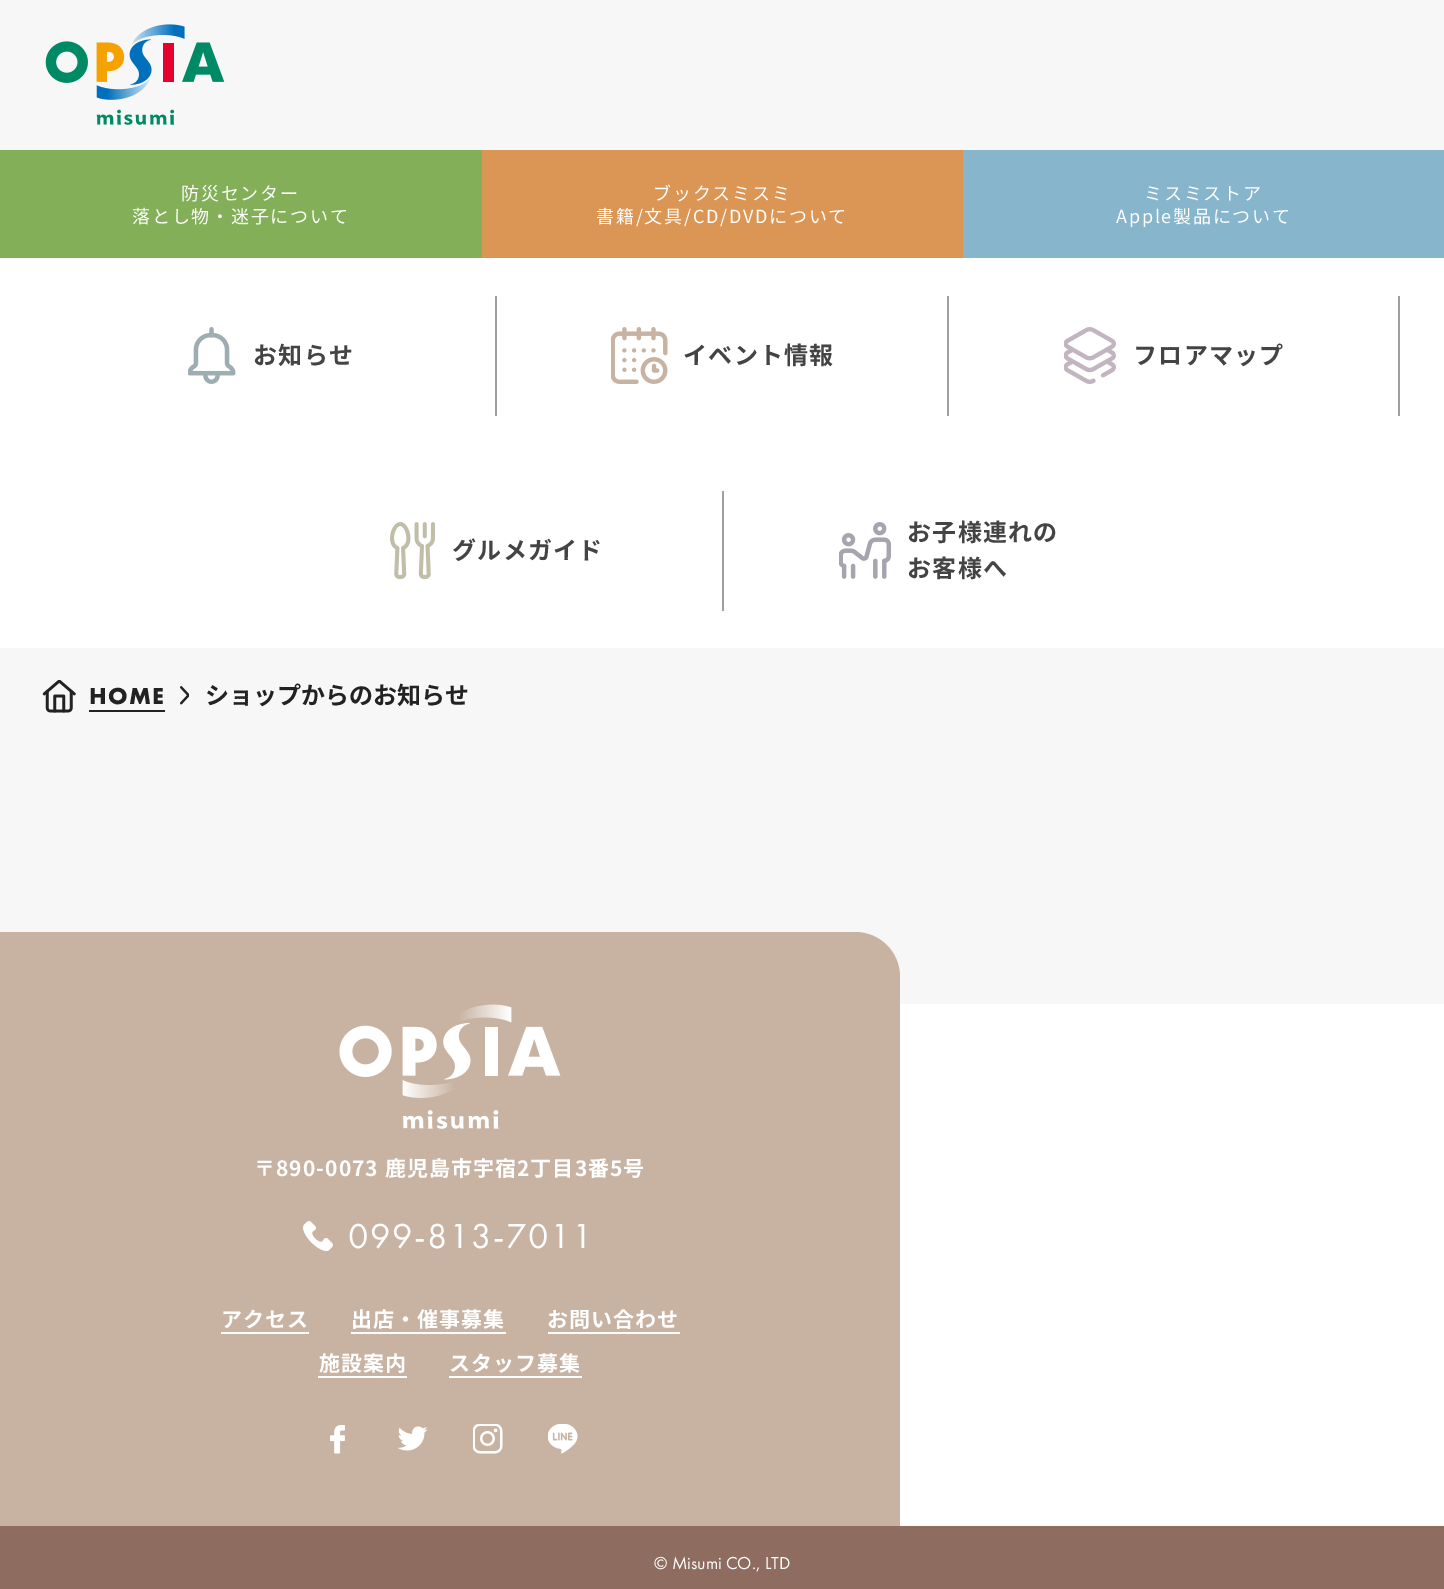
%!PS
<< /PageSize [1444 1589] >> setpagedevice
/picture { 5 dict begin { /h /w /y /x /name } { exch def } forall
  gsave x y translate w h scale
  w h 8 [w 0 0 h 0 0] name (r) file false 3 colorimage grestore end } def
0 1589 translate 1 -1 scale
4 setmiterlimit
1 setgray
0 0 1444 1589 rectfill
0.969 setgray
0 0 1444 150 rectfill
(img1.rgb) 45 24 180 101 picture
0.514 0.686 0.349 setrgbcolor
0 150 482 108 rectfill
/NotoSansJP-Regular [18 0 0 -18 0 0] selectfont
1 setgray
181 200 moveto 1.75 0 (防災センター) ashow
132 223 moveto 1.75 0 (落とし物・迷子について) ashow
0.859 0.588 0.337 setrgbcolor
482 150 481 108 rectfill
1 setgray
653 200 moveto 1.75 0 (ブックスミスミ) ashow
596 223 moveto 1.75 0 (書籍/文具/CD/DVDについて) ashow
0.529 0.714 0.8 setrgbcolor
963 150 481 108 rectfill
1 setgray
1144 200 moveto 1.75 0 (ミスミストア) ashow
1116 223 moveto 1.75 0 (Apple製品について) ashow
(img2.rgb) 188 327 48 57 picture
/NotoSansJP-Bold [24 0 0 -24 0 0] selectfont
0.267 setgray
253 364 moveto 1.25 0 (お知らせ) ashow
0.624 setgray
495 296 2 120 rectfill
(img3.rgb) 611 327 57 57 picture
0.267 setgray
683 364 moveto 1.25 0 (イベント情報) ashow
0.624 setgray
947 296 2 120 rectfill
(img4.rgb) 1064 327 52 57 picture
0.267 setgray
1133 364 moveto 1.25 0 (フロアマップ) ashow
0.624 setgray
1398 296 2 120 rectfill
(img5.rgb) 390 522 45 57 picture
0.267 setgray
452 559 moveto 1.25 0 (グルメガイド) ashow
0.624 setgray
722 491 2 120 rectfill
(img6.rgb) 839 522 52 57 picture
0.267 setgray
907 541 moveto 1.25 0 (お子様連れの) ashow
907 577 moveto 1.25 0 (お客様へ) ashow
0.969 setgray
0 648 1444 356 rectfill
(img7.rgb) 42 680 34 33 picture
/FuturaPT-Bold [24 0 0 -24 0 0] selectfont
0.133 setgray
89 704 moveto 1.25 0 (HOME) ashow
89 710 76 2 rectfill
(img8.rgb) 180 686 9 19 picture
/NotoSansJP-Bold [24 0 0 -24 0 0] selectfont
205 704 moveto (ショップからのお知らせ) show
0.784 0.702 0.639 setrgbcolor
newpath 0 932 moveto 855 932 lineto 880 932 900 952 900 977 curveto 900 1527 lineto 0 1527 lineto closepath fill
(img9.rgb) 339 1004 222 125 picture
/NotoSansJP-Bold [21 0 0 -21 0 0] selectfont
1 setgray
254 1176 moveto 1.05 0 (〒890-0073 鹿児島市宇宿2丁目3番5号) ashow
(img10.rgb) 303 1221 30 30 picture
/FuturaPT-Regular [36 0 0 -36 0 0] selectfont
348 1248 moveto 1.5 0 (099-813-7011) ashow
/NotoSansJP-Bold [21 0 0 -21 0 0] selectfont
221 1327 moveto 1.05 0 (アクセス) ashow
221 1332 88 2 rectfill
351 1327 moveto 1.05 0 (出店・催事募集) ashow
351 1332 155 2 rectfill
547 1327 moveto 1.05 0 (お問い合わせ) ashow
548 1332 132 2 rectfill
319 1371 moveto 1.05 0 (施設案内) ashow
318 1376 89 2 rectfill
449 1371 moveto 1.05 0 (スタッフ募集) ashow
449 1376 133 2 rectfill
(img11.rgb) 330 1425 15 29 picture
(img12.rgb) 398 1426 30 25 picture
(img13.rgb) 473 1424 30 30 picture
(img14.rgb) 548 1424 30 30 picture
0.557 0.424 0.373 setrgbcolor
0 1526 1444 63 rectfill
/FuturaPT-Regular [18 0 0 -18 0 0] selectfont
1 setgray
654 1569 moveto (© Misumi CO., LTD) show
showpage
